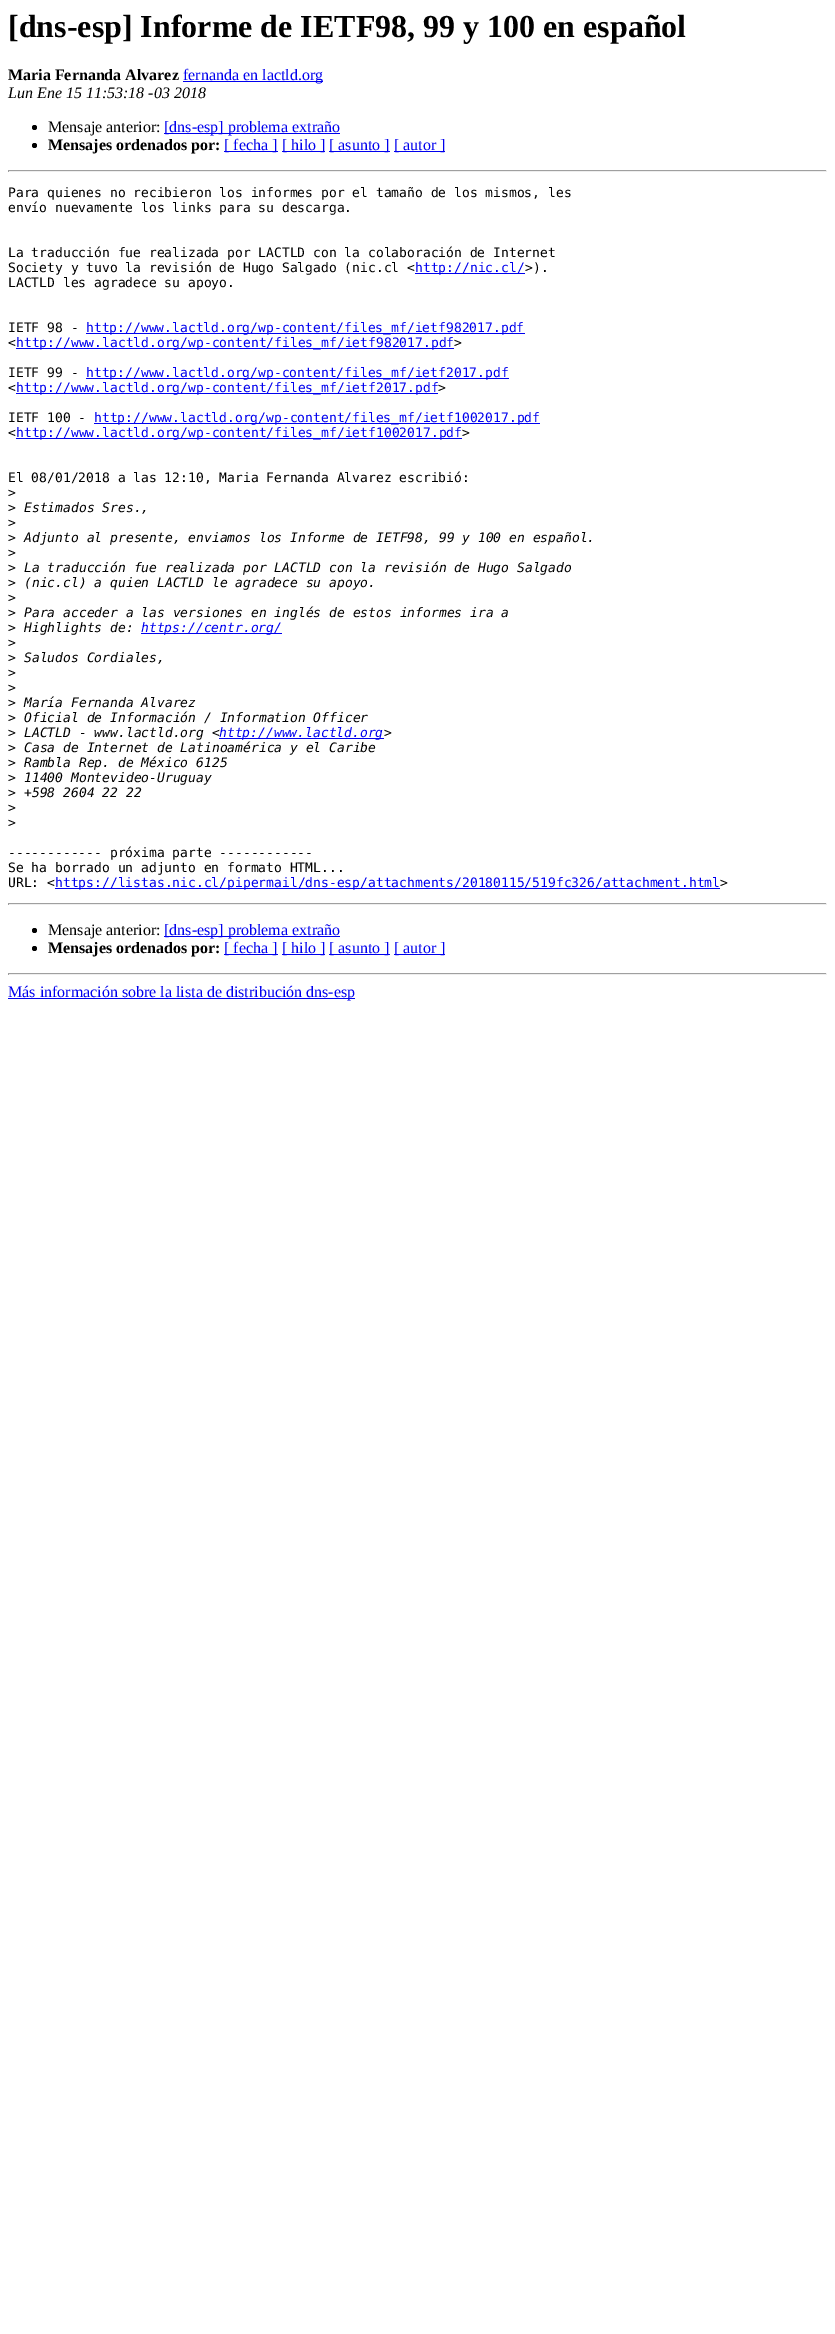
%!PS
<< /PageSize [835 2334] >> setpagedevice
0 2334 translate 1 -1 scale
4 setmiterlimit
1 setgray
0 0 835 2334 rectfill
/LiberationSerif-Bold [32 0 0 -32 0 0] selectfont
0 setgray
8 37 moveto ([dns-esp] Informe de IETF98, 99 y 100 en español) show
/LiberationSerif-Bold [16 0 0 -16 0 0] selectfont
8 80 moveto (Maria Fernanda Alvarez) show
0 0 0.933 setrgbcolor
183 81 140 1 rectfill
/LiberationSerif-Regular [16 0 0 -16 0 0] selectfont
183 80 moveto (fernanda en lactld.org) show
/LiberationSerif-Italic [16 0 0 -16 0 0] selectfont
0 setgray
8 98 moveto (Lun Ene 15 11:53:18 -03 2018) show
newpath 34.5 127.5 2.5 0 360 arc closepath fill
/LiberationSerif-Regular [16 0 0 -16 0 0] selectfont
48 132 moveto (Mensaje anterior:) show
0 0 0.933 setrgbcolor
164 133 176 1 rectfill
164 132 moveto ([dns-esp] problema extraño) show
0 setgray
newpath 34.5 145.5 2.5 0 360 arc closepath fill
/LiberationSerif-Bold [16 0 0 -16 0 0] selectfont
48 150 moveto (Mensajes ordenados por:) show
0 0 0.933 setrgbcolor
224 151 54 1 rectfill
/LiberationSerif-Regular [16 0 0 -16 0 0] selectfont
224 150 moveto ([ fecha ]) show
282 151 43 1 rectfill
282 150 moveto ([ hilo ]) show
329 151 61 1 rectfill
329 150 moveto ([ asunto ]) show
394 151 51 1 rectfill
394 150 moveto ([ autor ]) show
0.624 setgray
8 170 819 1 rectfill
0.933 setgray
826 170 1 2 rectfill
8 171 819 1 rectfill
0.624 setgray
8 170 1 2 rectfill
/DejaVuSansMono-Regular [13 0 0 -13 0 0] selectfont
0 setgray
8 197 moveto (Para quienes no recibieron los informes por el tamaño de los mismos, les) show
8 212 moveto (envío nuevamente los links para su descarga.) show
8 257 moveto (La traducción fue realizada por LACTLD con la colaboración de Internet) show
8 272 moveto (Society y tuvo la revisión de Hugo Salgado \(nic.cl <) show
0 0 0.933 setrgbcolor
415 273 110 1 rectfill
415 272 moveto (http://nic.cl/) show
0 setgray
525 272 moveto (>\).) show
8 287 moveto (LACTLD les agradece su apoyo.) show
8 332 moveto (IETF 98 -) show
0 0 0.933 setrgbcolor
86 333 439 1 rectfill
86 332 moveto (http://www.lactld.org/wp-content/files_mf/ietf982017.pdf) show
0 setgray
8 347 moveto (<) show
0 0 0.933 setrgbcolor
16 348 438 1 rectfill
16 347 moveto (http://www.lactld.org/wp-content/files_mf/ietf982017.pdf) show
0 setgray
454 347 moveto (>) show
8 377 moveto (IETF 99 -) show
0 0 0.933 setrgbcolor
86 378 423 1 rectfill
86 377 moveto (http://www.lactld.org/wp-content/files_mf/ietf2017.pdf) show
0 setgray
8 392 moveto (<) show
0 0 0.933 setrgbcolor
16 393 422 1 rectfill
16 392 moveto (http://www.lactld.org/wp-content/files_mf/ietf2017.pdf) show
0 setgray
438 392 moveto (>) show
8 422 moveto (IETF 100 -) show
0 0 0.933 setrgbcolor
94 423 446 1 rectfill
94 422 moveto (http://www.lactld.org/wp-content/files_mf/ietf1002017.pdf) show
0 setgray
8 437 moveto (<) show
0 0 0.933 setrgbcolor
16 438 446 1 rectfill
16 437 moveto (http://www.lactld.org/wp-content/files_mf/ietf1002017.pdf) show
0 setgray
462 437 moveto (>) show
8 482 moveto (El 08/01/2018 a las 12:10, Maria Fernanda Alvarez escribió:) show
8 497 moveto (>) show
8 512 moveto (>) show
/DejaVuSansMono-Italic [13 0 0 -13 0 0] selectfont
24 512 moveto (Estimados Sres.,) show
/DejaVuSansMono-Regular [13 0 0 -13 0 0] selectfont
8 527 moveto (>) show
8 542 moveto (>) show
/DejaVuSansMono-Italic [13 0 0 -13 0 0] selectfont
24 542 moveto (Adjunto al presente, enviamos los Informe de IETF98, 99 y 100 en español.) show
/DejaVuSansMono-Regular [13 0 0 -13 0 0] selectfont
8 557 moveto (>) show
8 572 moveto (>) show
/DejaVuSansMono-Italic [13 0 0 -13 0 0] selectfont
24 572 moveto (La traducción fue realizada por LACTLD con la revisión de Hugo Salgado) show
/DejaVuSansMono-Regular [13 0 0 -13 0 0] selectfont
8 587 moveto (>) show
/DejaVuSansMono-Italic [13 0 0 -13 0 0] selectfont
24 587 moveto (\(nic.cl\) a quien LACTLD le agradece su apoyo.) show
/DejaVuSansMono-Regular [13 0 0 -13 0 0] selectfont
8 602 moveto (>) show
8 617 moveto (>) show
/DejaVuSansMono-Italic [13 0 0 -13 0 0] selectfont
24 617 moveto (Para acceder a las versiones en inglés de estos informes ira a) show
/DejaVuSansMono-Regular [13 0 0 -13 0 0] selectfont
8 632 moveto (>) show
/DejaVuSansMono-Italic [13 0 0 -13 0 0] selectfont
24 632 moveto (Highlights de:) show
0 0 0.933 setrgbcolor
141 633 141 1 rectfill
141 632 moveto (https://centr.org/) show
/DejaVuSansMono-Regular [13 0 0 -13 0 0] selectfont
0 setgray
8 647 moveto (>) show
8 662 moveto (>) show
/DejaVuSansMono-Italic [13 0 0 -13 0 0] selectfont
24 662 moveto (Saludos Cordiales,) show
/DejaVuSansMono-Regular [13 0 0 -13 0 0] selectfont
8 677 moveto (>) show
8 692 moveto (>) show
8 707 moveto (>) show
/DejaVuSansMono-Italic [13 0 0 -13 0 0] selectfont
24 707 moveto (María Fernanda Alvarez) show
/DejaVuSansMono-Regular [13 0 0 -13 0 0] selectfont
8 722 moveto (>) show
/DejaVuSansMono-Italic [13 0 0 -13 0 0] selectfont
24 722 moveto (Oficial de Información / Information Officer) show
/DejaVuSansMono-Regular [13 0 0 -13 0 0] selectfont
8 737 moveto (>) show
/DejaVuSansMono-Italic [13 0 0 -13 0 0] selectfont
24 737 moveto (LACTLD - www.lactld.org <) show
0 0 0.933 setrgbcolor
219 738 165 1 rectfill
219 737 moveto (http://www.lactld.org) show
0 setgray
384 737 moveto (>) show
/DejaVuSansMono-Regular [13 0 0 -13 0 0] selectfont
8 752 moveto (>) show
/DejaVuSansMono-Italic [13 0 0 -13 0 0] selectfont
24 752 moveto (Casa de Internet de Latinoamérica y el Caribe) show
/DejaVuSansMono-Regular [13 0 0 -13 0 0] selectfont
8 767 moveto (>) show
/DejaVuSansMono-Italic [13 0 0 -13 0 0] selectfont
24 767 moveto (Rambla Rep. de México 6125) show
/DejaVuSansMono-Regular [13 0 0 -13 0 0] selectfont
8 782 moveto (>) show
/DejaVuSansMono-Italic [13 0 0 -13 0 0] selectfont
24 782 moveto (11400 Montevideo-Uruguay) show
/DejaVuSansMono-Regular [13 0 0 -13 0 0] selectfont
8 797 moveto (>) show
/DejaVuSansMono-Italic [13 0 0 -13 0 0] selectfont
24 797 moveto (+598 2604 22 22) show
/DejaVuSansMono-Regular [13 0 0 -13 0 0] selectfont
8 812 moveto (>) show
8 827 moveto (>) show
8 857 moveto (------------ próxima parte ------------) show
8 872 moveto (Se ha borrado un adjunto en formato HTML...) show
8 887 moveto (URL: <) show
0 0 0.933 setrgbcolor
55 888 665 1 rectfill
55 887 moveto (https://listas.nic.cl/pipermail/dns-esp/attachments/20180115/519fc326/attachment.html) show
0 setgray
720 887 moveto (>) show
0.624 setgray
8 903 819 1 rectfill
0.933 setgray
826 903 1 2 rectfill
8 904 819 1 rectfill
0.624 setgray
8 903 1 2 rectfill
0 setgray
newpath 34.5 930.5 2.5 0 360 arc closepath fill
/LiberationSerif-Regular [16 0 0 -16 0 0] selectfont
48 935 moveto (Mensaje anterior:) show
0 0 0.933 setrgbcolor
164 936 176 1 rectfill
164 935 moveto ([dns-esp] problema extraño) show
0 setgray
newpath 34.5 948.5 2.5 0 360 arc closepath fill
/LiberationSerif-Bold [16 0 0 -16 0 0] selectfont
48 953 moveto (Mensajes ordenados por:) show
0 0 0.933 setrgbcolor
224 954 54 1 rectfill
/LiberationSerif-Regular [16 0 0 -16 0 0] selectfont
224 953 moveto ([ fecha ]) show
282 954 43 1 rectfill
282 953 moveto ([ hilo ]) show
329 954 61 1 rectfill
329 953 moveto ([ asunto ]) show
394 954 51 1 rectfill
394 953 moveto ([ autor ]) show
0.624 setgray
8 973 819 1 rectfill
0.933 setgray
826 973 1 2 rectfill
8 974 819 1 rectfill
0.624 setgray
8 973 1 2 rectfill
0 0 0.933 setrgbcolor
8 998 347 1 rectfill
8 997 moveto (Más información sobre la lista de distribución dns-esp) show
showpage
